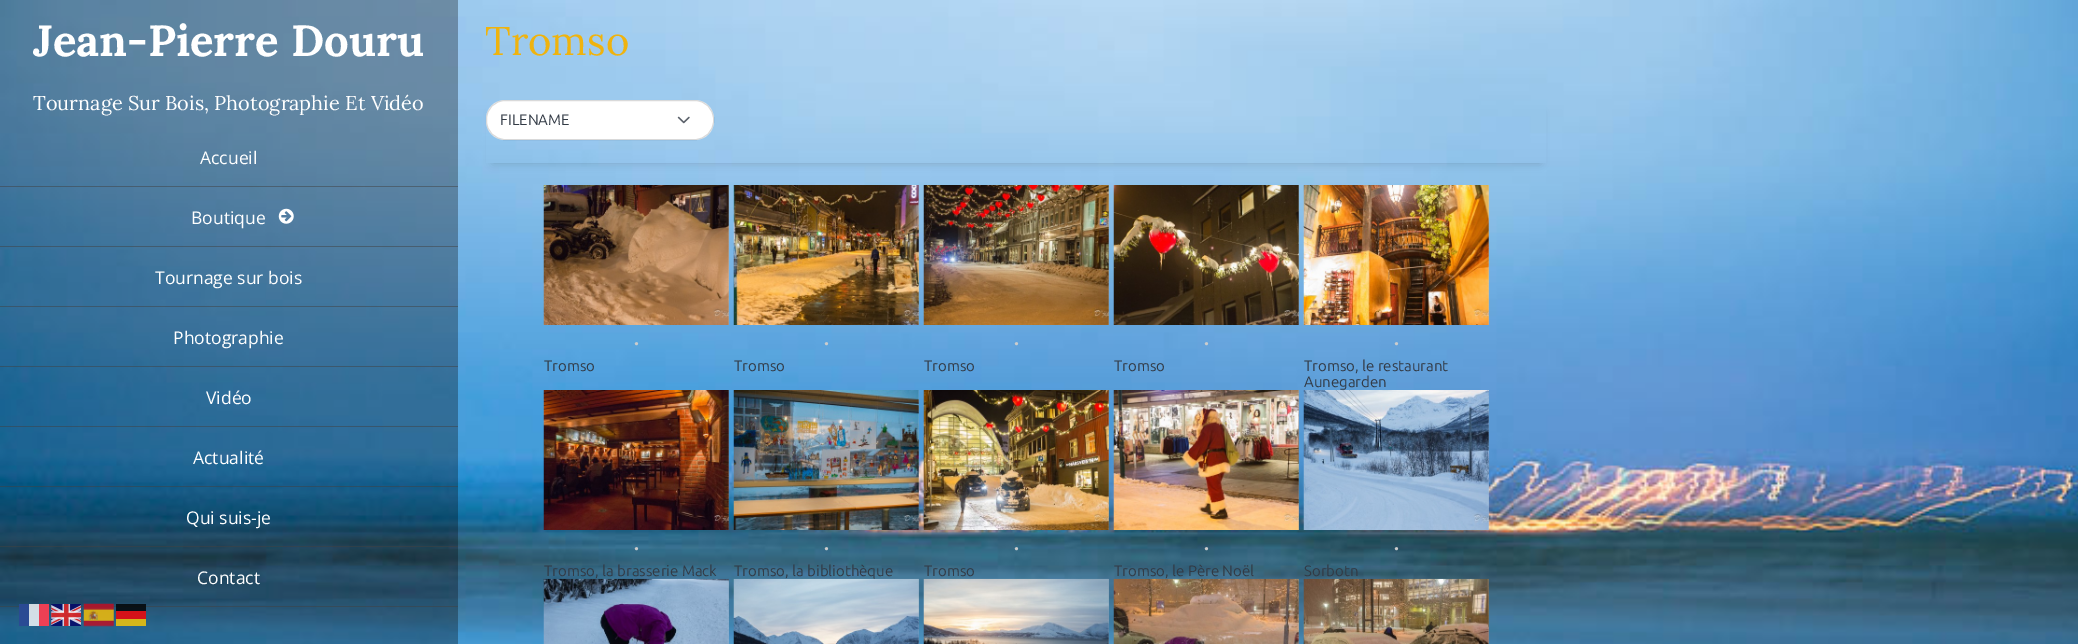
%!PS
<< /PageSize [2078 644] /PageUsesTransparency true >> setpagedevice
/alpha { dup .setfillconstantalpha .setstrokeconstantalpha } def
/roundrect { 5 dict begin { /r /h /w /y /x } { exch def } forall
  x r add y moveto x w add y 2 copy h add r arct x w add y h add x 1 index r arct
  x y h add x y r arct x y 2 copy exch w add exch r arct closepath end } def
/shadow { 12 dict begin { /a /b /q /h /w /y /x } { exch def } forall gsave /was 0 def
  9 -2 -9 { dup b mul 4 div /e exch def 1 sub .425 mul 2.718 exch exp 1 add a .99 .min exch div /now exch def
    1 1 now sub 1 was sub div sub alpha /was now def
    w h .min e 2 mul add 0 gt { x e sub y e sub w e 2 mul add h e 2 mul add
      q e add b .6 mul add w h .min 2 div e add .min 0 .max roundrect fill } if } for grestore end } def
/picture { 5 dict begin { /h /w /y /x /name } { exch def } forall
  gsave x y translate w h scale
  w h 8 [w 0 0 h 0 0] name (r) file false 3 colorimage grestore end } def
0 .pushpdf14devicefilter
0 644 translate 1 -1 scale
4 setmiterlimit
1 setgray
0 0 2078 644 rectfill
(img1.rgb) 0 0 2078 644 picture
0.3 alpha
0 setgray
0 0 458 639 rectfill
/Lora-Bold [43.75 0 0 -43.75 0 0] selectfont
1 alpha
1 setgray
33 56 moveto (Jean-Pierre Douru) show
/Lora-Regular [20 0 0 -20 0 0] selectfont
33 110 moveto (Tournage Sur Bois, Photographie Et Vidéo) show
0.5 alpha
0.255 setgray
0 186 458 1 rectfill
/OpenSans-Regular [17.5 0 0 -17.5 0 0] selectfont
1 alpha
1 setgray
200 164 moveto (Accueil) show
0.5 alpha
0.255 setgray
0 246 458 1 rectfill
1 alpha
1 setgray
191 224 moveto (Boutique) show
(img2.rgb) 278 208 16 16 picture
0.5 alpha
0.255 setgray
0 306 458 1 rectfill
1 alpha
1 setgray
155 284 moveto (Tournage sur bois) show
0.5 alpha
0.255 setgray
0 366 458 1 rectfill
1 alpha
1 setgray
173 344 moveto (Photographie) show
0.5 alpha
0.255 setgray
0 426 458 1 rectfill
1 alpha
1 setgray
206 404 moveto (Vidéo) show
0.5 alpha
0.255 setgray
0 486 458 1 rectfill
1 alpha
1 setgray
193 464 moveto (Actualité) show
0.5 alpha
0.255 setgray
0 546 458 1 rectfill
1 alpha
1 setgray
186 524 moveto (Qui suis-je) show
0.5 alpha
0.255 setgray
0 606 458 1 rectfill
1 alpha
1 setgray
197 584 moveto (Contact) show
/Lora-Regular [40 0 0 -40 0 0] selectfont
0.937 0.702 0.055 setrgbcolor
485 55 moveto (Tromso) show
gsave
newpath 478 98 moveto 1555 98 lineto 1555 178 lineto 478 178 lineto closepath 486 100 moveto 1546 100 lineto 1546 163 lineto 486 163 lineto closepath eoclip newpath
0 setgray
493 113 1047 50 0 4.5 0.16 shadow
grestore
1 setgray
486 100 228 40 19 roundrect fill
0.15 alpha
0 setgray
486.5 100.5 227 39 18.5 roundrect stroke
/Ubuntu-Regular [15 0 0 -15 0 0] selectfont
1 alpha
0.196 0.227 0.271 setrgbcolor
500 125 moveto (FILENAME) show
(img3.rgb) 677 116 13 8 picture
(img4.rgb) 543 185 186 140 picture
/LiberationSerif-Bold [20 0 0 -20 0 0] selectfont
0.8 setgray
634 345 moveto (.) show
/Ubuntu-Regular [15 0 0 -15 0 0] selectfont
0.196 0.227 0.271 setrgbcolor
544 371 moveto (Tromso) show
(img5.rgb) 733 185 186 140 picture
/LiberationSerif-Bold [20 0 0 -20 0 0] selectfont
0.8 setgray
824 345 moveto (.) show
/Ubuntu-Regular [15 0 0 -15 0 0] selectfont
0.196 0.227 0.271 setrgbcolor
734 371 moveto (Tromso) show
(img6.rgb) 923 185 186 140 picture
/LiberationSerif-Bold [20 0 0 -20 0 0] selectfont
0.8 setgray
1014 345 moveto (.) show
/Ubuntu-Regular [15 0 0 -15 0 0] selectfont
0.196 0.227 0.271 setrgbcolor
924 371 moveto (Tromso) show
(img7.rgb) 1113 185 186 140 picture
/LiberationSerif-Bold [20 0 0 -20 0 0] selectfont
0.8 setgray
1204 345 moveto (.) show
/Ubuntu-Regular [15 0 0 -15 0 0] selectfont
0.196 0.227 0.271 setrgbcolor
1114 371 moveto (Tromso) show
(img8.rgb) 1303 185 186 140 picture
/LiberationSerif-Bold [20 0 0 -20 0 0] selectfont
0.8 setgray
1394 345 moveto (.) show
/Ubuntu-Regular [15 0 0 -15 0 0] selectfont
0.196 0.227 0.271 setrgbcolor
1304 371 moveto (Tromso, le restaurant) show
1304 387 moveto (Aunegarden) show
(img9.rgb) 543 390 186 140 picture
/LiberationSerif-Bold [20 0 0 -20 0 0] selectfont
0.8 setgray
634 550 moveto (.) show
/Ubuntu-Regular [15 0 0 -15 0 0] selectfont
0.196 0.227 0.271 setrgbcolor
544 576 moveto (Tromso, la brasserie Mack) show
(img10.rgb) 733 390 186 140 picture
/LiberationSerif-Bold [20 0 0 -20 0 0] selectfont
0.8 setgray
824 550 moveto (.) show
/Ubuntu-Regular [15 0 0 -15 0 0] selectfont
0.196 0.227 0.271 setrgbcolor
734 576 moveto (Tromso, la bibliothèque) show
(img11.rgb) 923 390 186 140 picture
/LiberationSerif-Bold [20 0 0 -20 0 0] selectfont
0.8 setgray
1014 550 moveto (.) show
/Ubuntu-Regular [15 0 0 -15 0 0] selectfont
0.196 0.227 0.271 setrgbcolor
924 576 moveto (Tromso) show
(img12.rgb) 1113 390 186 140 picture
/LiberationSerif-Bold [20 0 0 -20 0 0] selectfont
0.8 setgray
1204 550 moveto (.) show
/Ubuntu-Regular [15 0 0 -15 0 0] selectfont
0.196 0.227 0.271 setrgbcolor
1114 576 moveto (Tromso, le Père Noël) show
(img13.rgb) 1303 390 186 140 picture
/LiberationSerif-Bold [20 0 0 -20 0 0] selectfont
0.8 setgray
1394 550 moveto (.) show
/Ubuntu-Regular [15 0 0 -15 0 0] selectfont
0.196 0.227 0.271 setrgbcolor
1304 576 moveto (Sorbotn) show
(img14.rgb) 543 578 186 66 picture
(img15.rgb) 733 578 186 66 picture
(img16.rgb) 923 578 186 66 picture
(img17.rgb) 1113 578 186 66 picture
(img18.rgb) 1303 578 186 66 picture
0.8 alpha
1 setgray
19 604 30 22 rectfill
1 alpha
(img19.rgb) 83 603 31 24 picture
0.8 alpha
0 0.149 0.498 setrgbcolor
19 604 10 22 rectfill
0.953 0.094 0.188 setrgbcolor
39 604 10 22 rectfill
1 alpha
(img20.rgb) 51 604 30 22 picture
0.8 alpha
0 setgray
116 604 30 7 rectfill
1 0 0 setrgbcolor
116 611 30 8 rectfill
1 0.8 0 setrgbcolor
116 619 30 7 rectfill
.poppdf14devicefilter showpage
